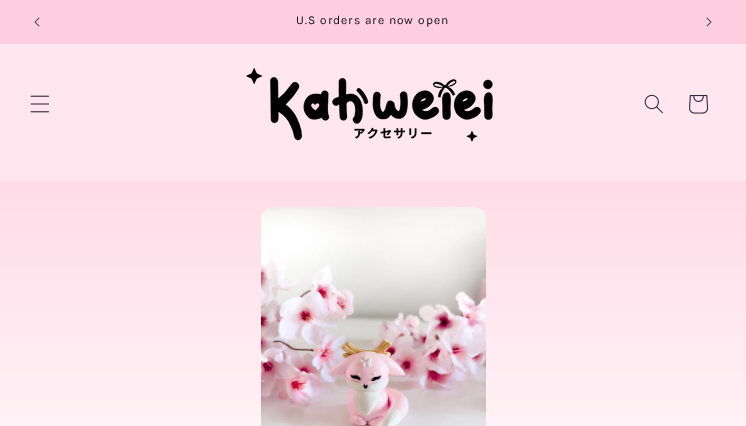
%!PS
<< /PageSize [746 426] >> setpagedevice
/picture { 5 dict begin { /h /w /y /x /name } { exch def } forall
  gsave x y translate w h scale
  w h 8 [w 0 0 h 0 0] name (r) file false 3 colorimage grestore end } def
0 426 translate 1 -1 scale
4 setmiterlimit
1 0.902 0.937 setrgbcolor
0 0 746 426 rectfill
1 0.808 0.878 setrgbcolor
0 0 746 44 rectfill
(img1.rgb) 34 17 6 10 picture
/Karla-Regular [12 0 0 -12 0 0] selectfont
0.075 setgray
296 24 moveto 1 0 (U.S orders are now open) ashow
(img2.rgb) 706 17 6 10 picture
(img3.rgb) 30 95 20 18 picture
(img4.rgb) 246 67 247 75 picture
(img5.rgb) 644 94 19 20 picture
(img6.rgb) 689 95 20 19 picture
gsave newpath 0 181 moveto 746 181 lineto 746 426 lineto 0 426 lineto closepath clip newpath
<< /ShadingType 2 /ColorSpace /DeviceRGB /Coords [373 0 373 426] /Extend [true true] /Function << /FunctionType 3 /Domain [0 1] /Functions [<< /FunctionType 2 /Domain [0 1] /C0 [1 0.827 0.886] /C1 [1 0.827 0.886] /N 1 >> << /FunctionType 2 /Domain [0 1] /C0 [1 0.827 0.886] /C1 [1 0.827 0.886] /N 1 >> << /FunctionType 2 /Domain [0 1] /C0 [1 0.827 0.886] /C1 [1 0.949 0.965] /N 1 >>] /Bounds [0.02 0.19] /Encode [0 1 0 1 0 1] >> >> shfill grestore
(img7.rgb) 261 207 225 219 picture
showpage
